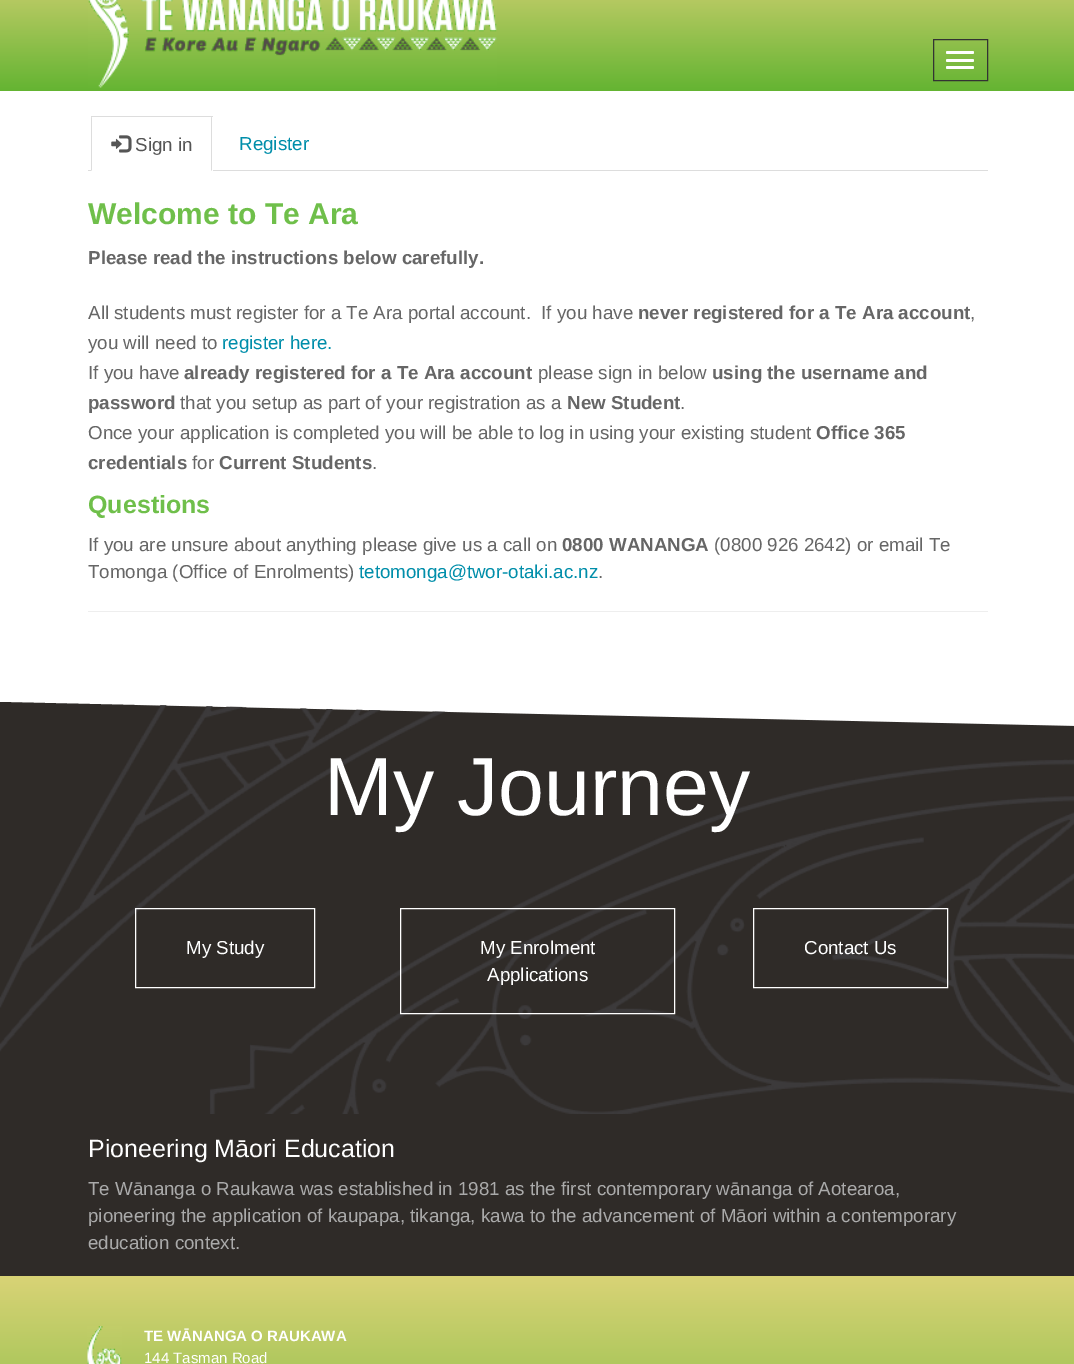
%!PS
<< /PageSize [1074 1364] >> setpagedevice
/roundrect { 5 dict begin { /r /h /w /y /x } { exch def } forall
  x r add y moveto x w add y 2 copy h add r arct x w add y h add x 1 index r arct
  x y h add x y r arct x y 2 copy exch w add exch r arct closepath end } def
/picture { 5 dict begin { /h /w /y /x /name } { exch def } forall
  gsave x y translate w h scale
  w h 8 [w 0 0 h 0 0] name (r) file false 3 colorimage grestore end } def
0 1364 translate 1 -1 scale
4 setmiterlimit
1 setgray
0 0 1074 1364 rectfill
gsave newpath 0 0 moveto 1074 0 lineto 1074 91 lineto 0 91 lineto closepath clip newpath
<< /ShadingType 2 /ColorSpace /DeviceRGB /Coords [538 -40 538 91] /Extend [true true] /Function << /FunctionType 2 /Domain [0 1] /C0 [0.851 0.827 0.463] /C1 [0.392 0.706 0.196] /N 1 >> >> shfill grestore
(img1.rgb) 88 0 409 88 picture
0.2 setgray
933.5 39.5 54 41 rectstroke
1 setgray
946 51 28 3 1.5 roundrect fill
946 59 28 3 1.5 roundrect fill
946 66 28 3 1.5 roundrect fill
0.867 setgray
88 170 900 1 rectfill
1 setgray
91 170 122 1 rectfill
0.867 setgray
91 116 122 1 rectfill
newpath 212 116 moveto 212 171 lineto 211 170 lineto 211 118 lineto closepath fill
newpath 91 171 moveto 91 116 lineto 92 118 lineto 92 170 lineto closepath fill
(img2.rgb) 111 135 21 18 picture
/LiberationSans-Regular [18.75 0 0 -18.75 0 0] selectfont
0.333 setgray
135 151 moveto (Sign in) show
0 0.557 0.667 setrgbcolor
239 150 moveto (Register) show
/LiberationSans-Bold [30 0 0 -30 0 0] selectfont
0.435 0.749 0.29 setrgbcolor
88 224 moveto (Welcome to Te Ara) show
/LiberationSans-Bold [18.75 0 0 -18.75 0 0] selectfont
0.4 setgray
88 264 moveto (Please read the instructions below carefully.) show
/LiberationSans-Regular [18.75 0 0 -18.75 0 0] selectfont
88 319 moveto (All students must register for a Te Ara portal account.  If you have) show
/LiberationSans-Bold [18.75 0 0 -18.75 0 0] selectfont
638 319 moveto (never registered for a Te Ara account) show
/LiberationSans-Regular [18.75 0 0 -18.75 0 0] selectfont
970 319 moveto (,) show
88 349 moveto (you will need to) show
0 0.557 0.667 setrgbcolor
222 349 moveto (register here.) show
0.4 setgray
88 379 moveto (If you have) show
/LiberationSans-Bold [18.75 0 0 -18.75 0 0] selectfont
184 379 moveto (already registered for a Te Ara account) show
/LiberationSans-Regular [18.75 0 0 -18.75 0 0] selectfont
538 379 moveto (please sign in below) show
/LiberationSans-Bold [18.75 0 0 -18.75 0 0] selectfont
712 379 moveto (using the username and) show
88 409 moveto (password) show
/LiberationSans-Regular [18.75 0 0 -18.75 0 0] selectfont
180 409 moveto (that you setup as part of your registration as a) show
/LiberationSans-Bold [18.75 0 0 -18.75 0 0] selectfont
567 409 moveto (New Student) show
/LiberationSans-Regular [18.75 0 0 -18.75 0 0] selectfont
680 409 moveto (.) show
88 439 moveto (Once your application is completed you will be able to log in using your existing student) show
/LiberationSans-Bold [18.75 0 0 -18.75 0 0] selectfont
816 439 moveto (Office 365) show
88 469 moveto (credentials) show
/LiberationSans-Regular [18.75 0 0 -18.75 0 0] selectfont
192 469 moveto (for) show
/LiberationSans-Bold [18.75 0 0 -18.75 0 0] selectfont
219 469 moveto (Current Students) show
/LiberationSans-Regular [18.75 0 0 -18.75 0 0] selectfont
372 469 moveto (.) show
/LiberationSans-Bold [25 0 0 -25 0 0] selectfont
0.435 0.749 0.29 setrgbcolor
88 513 moveto (Questions) show
/LiberationSans-Regular [18.75 0 0 -18.75 0 0] selectfont
0.4 setgray
88 551 moveto (If you are unsure about anything please give us a call on) show
/LiberationSans-Bold [18.75 0 0 -18.75 0 0] selectfont
562 551 moveto (0800 WANANGA) show
/LiberationSans-Regular [18.75 0 0 -18.75 0 0] selectfont
714 551 moveto (\(0800 926 2642\) or email Te) show
88 578 moveto (Tomonga \(Office of Enrolments\)) show
0 0.557 0.667 setrgbcolor
359 578 moveto (tetomonga@twor-otaki.ac.nz) show
0.4 setgray
598 578 moveto (.) show
0.933 setgray
88 611 900 1 rectfill
0.184 0.169 0.157 setrgbcolor
newpath 0 702 moveto 0 1126 lineto 552 1139 lineto 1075 1139 lineto 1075 726 lineto closepath fill
(img3.rgb) 0 705 1074 409 picture
/LiberationSans-Regular [82.5 0 0 -82.5 0 0] selectfont
1 setgray
324 815 moveto (My Journey) show
135.5 908.5 179 79 rectstroke
/LiberationSans-Regular [18.75 0 0 -18.75 0 0] selectfont
186 954 moveto (My Study) show
400.5 908.5 274 105 rectstroke
480 954 moveto (My Enrolment) show
487 981 moveto (Applications) show
753.5 908.5 194 79 rectstroke
804 954 moveto (Contact Us) show
0.184 0.169 0.157 setrgbcolor
0 1126 1074 150 rectfill
/LiberationSans-Regular [25 0 0 -25 0 0] selectfont
1 setgray
88 1157 moveto (Pioneering Māori Education) show
/LiberationSans-Regular [18.75 0 0 -18.75 0 0] selectfont
0.667 setgray
88 1195 moveto (Te Wānanga o Raukawa was established in 1981 as the first contemporary wānanga of Aotearoa,) show
88 1222 moveto (pioneering the application of kaupapa, tikanga, kawa to the advancement of Māori within a contemporary) show
88 1249 moveto (education context.) show
gsave newpath 0 1276 moveto 1074 1276 lineto 1074 1364 lineto 0 1364 lineto closepath clip newpath
<< /ShadingType 2 /ColorSpace /DeviceRGB /Coords [538 1276 538 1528] /Extend [true true] /Function << /FunctionType 2 /Domain [0 1] /C0 [0.851 0.827 0.463] /C1 [0.392 0.706 0.196] /N 1 >> >> shfill grestore
(img4.rgb) 87 1326 35 38 picture
/LiberationSans-Bold [15 0 0 -15 0 0] selectfont
1 setgray
144 1341 moveto (TE WĀNANGA O RAUKAWA) show
/LiberationSans-Regular [15 0 0 -15 0 0] selectfont
144 1363 moveto (144 Tasman Road) show
showpage
